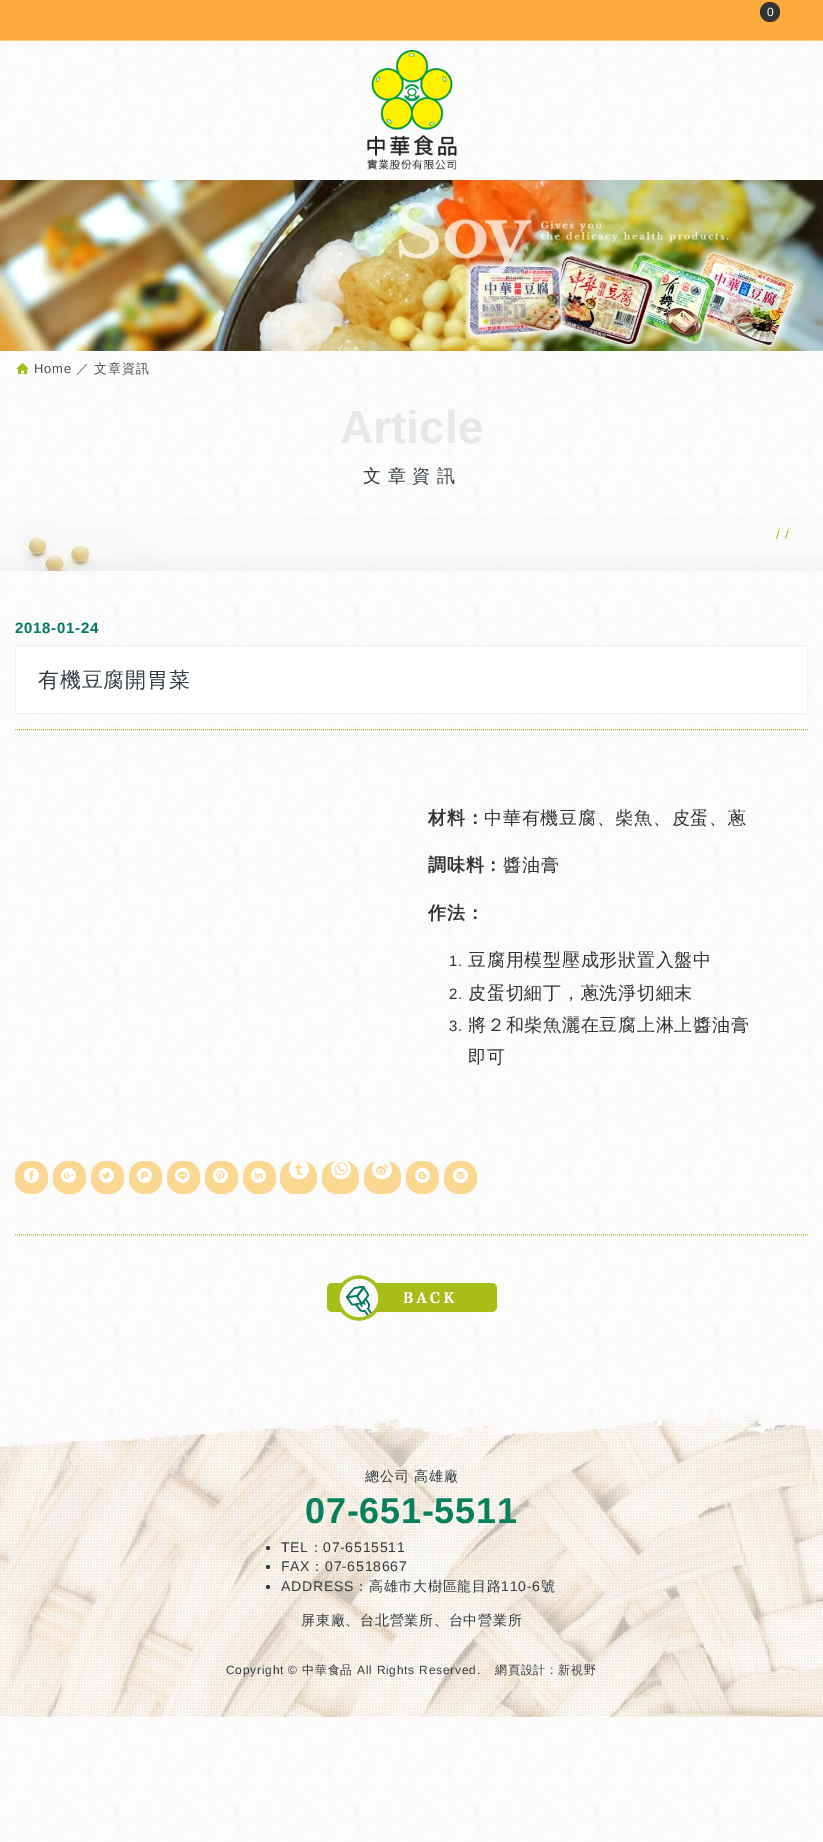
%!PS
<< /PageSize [823 1842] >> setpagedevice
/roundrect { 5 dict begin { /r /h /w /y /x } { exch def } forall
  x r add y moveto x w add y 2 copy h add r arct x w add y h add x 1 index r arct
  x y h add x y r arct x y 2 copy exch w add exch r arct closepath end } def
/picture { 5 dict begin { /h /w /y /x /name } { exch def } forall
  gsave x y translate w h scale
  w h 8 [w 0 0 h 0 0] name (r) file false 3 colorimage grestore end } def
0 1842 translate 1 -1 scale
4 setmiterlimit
1 setgray
0 0 823 1842 rectfill
(img1.rgb) 0 41 823 1801 picture
1 0.808 0.443 setrgbcolor
0 40 823 1 rectfill
0.988 0.675 0.239 setrgbcolor
0 0 823 40 rectfill
0.2 setgray
newpath 770 12 10 0 360 arc closepath fill
/LiberationSans-Regular [12 0 0 -12 0 0] selectfont
1 setgray
767 16 moveto (0) show
(img2.rgb) 89 48 722 121 picture
(img3.rgb) 367 50 90 120 picture
(img4.rgb) 0 180 823 171 picture
(img5.rgb) 16 363 13 11 picture
/LiberationSans-Regular [13 0 0 -13 0 0] selectfont
0.322 setgray
34 373 moveto 0.75 0 (Home) ashow
/WenQuanYiZenHei-Medium [13 0 0 -13 0 0] selectfont
76 373 moveto 0.75 0 (／ 文章資訊) ashow
/LiberationSans-Bold [46 0 0 -46 0 0] selectfont
0.906 0.906 0.902 setrgbcolor
340 443 moveto (Article) show
/WenQuanYiZenHei-Medium [18 0 0 -18 0 0] selectfont
0.196 0.235 0.259 setrgbcolor
363 482 moveto 6.5 0 (文章資訊) ashow
(img6.rgb) 0 516 823 55 picture
/LiberationSans-Regular [13 0 0 -13 0 0] selectfont
0.671 0.702 0.082 setrgbcolor
776 539 moveto 0.75 0 (/ /) ashow
/LiberationSans-Bold [15 0 0 -15 0 0] selectfont
0 0.475 0.369 setrgbcolor
15 633 moveto 0.75 0 (2018-01-24) ashow
1 setgray
newpath 15.5 645.5 moveto 807.5 645.5 lineto 807.5 713.5 lineto 15.5 713.5 lineto closepath gsave fill grestore
0.945 setgray
stroke
/WenQuanYiZenHei-Medium [21 0 0 -21 0 0] selectfont
0.196 0.235 0.259 setrgbcolor
38 687 moveto 0.75 0 (有機豆腐開胃菜) ashow
0.655 0.745 0.094 setrgbcolor
[1 1] 0 setdash
newpath 15 729.5 moveto 808 729.5 lineto stroke
newpath 15 1234.5 moveto 808 1234.5 lineto stroke
/WenQuanYiZenHei-Bold [18 0 0 -18 0 0] selectfont
0.2 setgray
428 824 moveto 0.75 0 (材料：) ashow
/WenQuanYiZenHei-Medium [18 0 0 -18 0 0] selectfont
484 824 moveto 0.75 0 (中華有機豆腐、柴魚、皮蛋、蔥) ashow
/WenQuanYiZenHei-Bold [18 0 0 -18 0 0] selectfont
428 871 moveto 0.75 0 (調味料：) ashow
/WenQuanYiZenHei-Medium [18 0 0 -18 0 0] selectfont
503 871 moveto 0.75 0 (醬油膏) ashow
/WenQuanYiZenHei-Bold [18 0 0 -18 0 0] selectfont
428 919 moveto 0.75 0 (作法：) ashow
/LiberationSans-Regular [15 0 0 -15 0 0] selectfont
449 966 moveto 0.75 0 (1.) ashow
/WenQuanYiZenHei-Medium [18 0 0 -18 0 0] selectfont
468 966 moveto 0.75 0 (豆腐用模型壓成形狀置入盤中) ashow
/LiberationSans-Regular [15 0 0 -15 0 0] selectfont
449 999 moveto 0.75 0 (2.) ashow
/WenQuanYiZenHei-Medium [18 0 0 -18 0 0] selectfont
468 999 moveto 0.75 0 (皮蛋切細丁，蔥洗淨切細末) ashow
/LiberationSans-Regular [15 0 0 -15 0 0] selectfont
449 1031 moveto 0.75 0 (3.) ashow
/WenQuanYiZenHei-Medium [18 0 0 -18 0 0] selectfont
468 1031 moveto 0.75 0 (將２和柴魚灑在豆腐上淋上醬油膏) ashow
468 1063 moveto 0.75 0 (即可) ashow
0.984 0.847 0.573 setrgbcolor
15 1161 33 33 15 roundrect fill
(img7.rgb) 24 1167 15 16 picture
53 1161 33 33 15 roundrect fill
(img8.rgb) 61 1167 15 16 picture
91 1161 33 33 15 roundrect fill
(img9.rgb) 99 1167 15 16 picture
129 1161 33 33 15 roundrect fill
(img10.rgb) 137 1167 15 16 picture
167 1161 33 33 15 roundrect fill
(img11.rgb) 175 1167 15 16 picture
205 1161 33 33 15 roundrect fill
(img12.rgb) 213 1167 15 16 picture
243 1161 33 33 15 roundrect fill
(img13.rgb) 251 1167 15 16 picture
280 1161 37 33 15 roundrect fill
(img14.rgb) 289 1161 20 19 picture
322 1161 37 33 15 roundrect fill
(img15.rgb) 331 1161 20 19 picture
364 1161 37 33 15 roundrect fill
(img16.rgb) 372 1161 20 19 picture
406 1161 33 33 15 roundrect fill
(img17.rgb) 415 1167 15 16 picture
444 1161 33 33 15 roundrect fill
(img18.rgb) 453 1167 15 16 picture
(img19.rgb) 327 1275 170 46 picture
(img20.rgb) 0 1408 823 309 picture
/WenQuanYiZenHei-Medium [14 0 0 -14 0 0] selectfont
0.196 0.235 0.259 setrgbcolor
365 1481 moveto 0.75 0 (總公司 高雄廠) ashow
/LiberationSans-Bold [36 0 0 -36 0 0] selectfont
0.031 0.502 0.357 setrgbcolor
305 1523 moveto 0.75 0 (07-651-5511) ashow
0.196 0.239 0.255 setrgbcolor
newpath 268 1548 2 0 360 arc closepath fill
/LiberationSans-Regular [14 0 0 -14 0 0] selectfont
0.196 0.235 0.259 setrgbcolor
281 1552 moveto 0.75 0 (TEL) ashow
/WenQuanYiZenHei-Medium [14 0 0 -14 0 0] selectfont
309 1552 moveto 0.75 0 (：) ashow
/LiberationSans-Regular [14 0 0 -14 0 0] selectfont
323 1552 moveto 0.75 0 (07-6515511) ashow
0.196 0.239 0.255 setrgbcolor
newpath 268 1567 2 0 360 arc closepath fill
0.196 0.235 0.259 setrgbcolor
281 1571 moveto 0.75 0 (FAX) ashow
/WenQuanYiZenHei-Medium [14 0 0 -14 0 0] selectfont
310 1571 moveto 0.75 0 (：) ashow
/LiberationSans-Regular [14 0 0 -14 0 0] selectfont
325 1571 moveto 0.75 0 (07-6518667) ashow
0.196 0.239 0.255 setrgbcolor
newpath 268 1587 2 0 360 arc closepath fill
0.196 0.235 0.259 setrgbcolor
281 1591 moveto 0.75 0 (ADDRESS) ashow
/WenQuanYiZenHei-Medium [14 0 0 -14 0 0] selectfont
354 1591 moveto 0.75 0 (：高雄市大樹區龍目路) ashow
/LiberationSans-Regular [14 0 0 -14 0 0] selectfont
501 1591 moveto 0.75 0 (110-6) ashow
/WenQuanYiZenHei-Medium [14 0 0 -14 0 0] selectfont
541 1591 moveto 0.75 0 (號) ashow
301 1625 moveto 0.75 0 (屏東廠、台北營業所、台中營業所) ashow
/LiberationSans-Regular [12 0 0 -12 0 0] selectfont
226 1674 moveto 0.75 0 (Copyright ©) ashow
/WenQuanYiZenHei-Medium [12 0 0 -12 0 0] selectfont
302 1674 moveto 0.75 0 (中華食品) ashow
/LiberationSans-Regular [12 0 0 -12 0 0] selectfont
357 1674 moveto 0.75 0 (All Rights Reserved.) ashow
/WenQuanYiZenHei-Medium [12 0 0 -12 0 0] selectfont
495 1674 moveto 0.75 0 (網頁設計) ashow
/LiberationSans-Regular [12 0 0 -12 0 0] selectfont
550 1674 moveto 0.75 0 (:) ashow
/WenQuanYiZenHei-Medium [12 0 0 -12 0 0] selectfont
558 1674 moveto 0.75 0 (新視野) ashow
showpage
